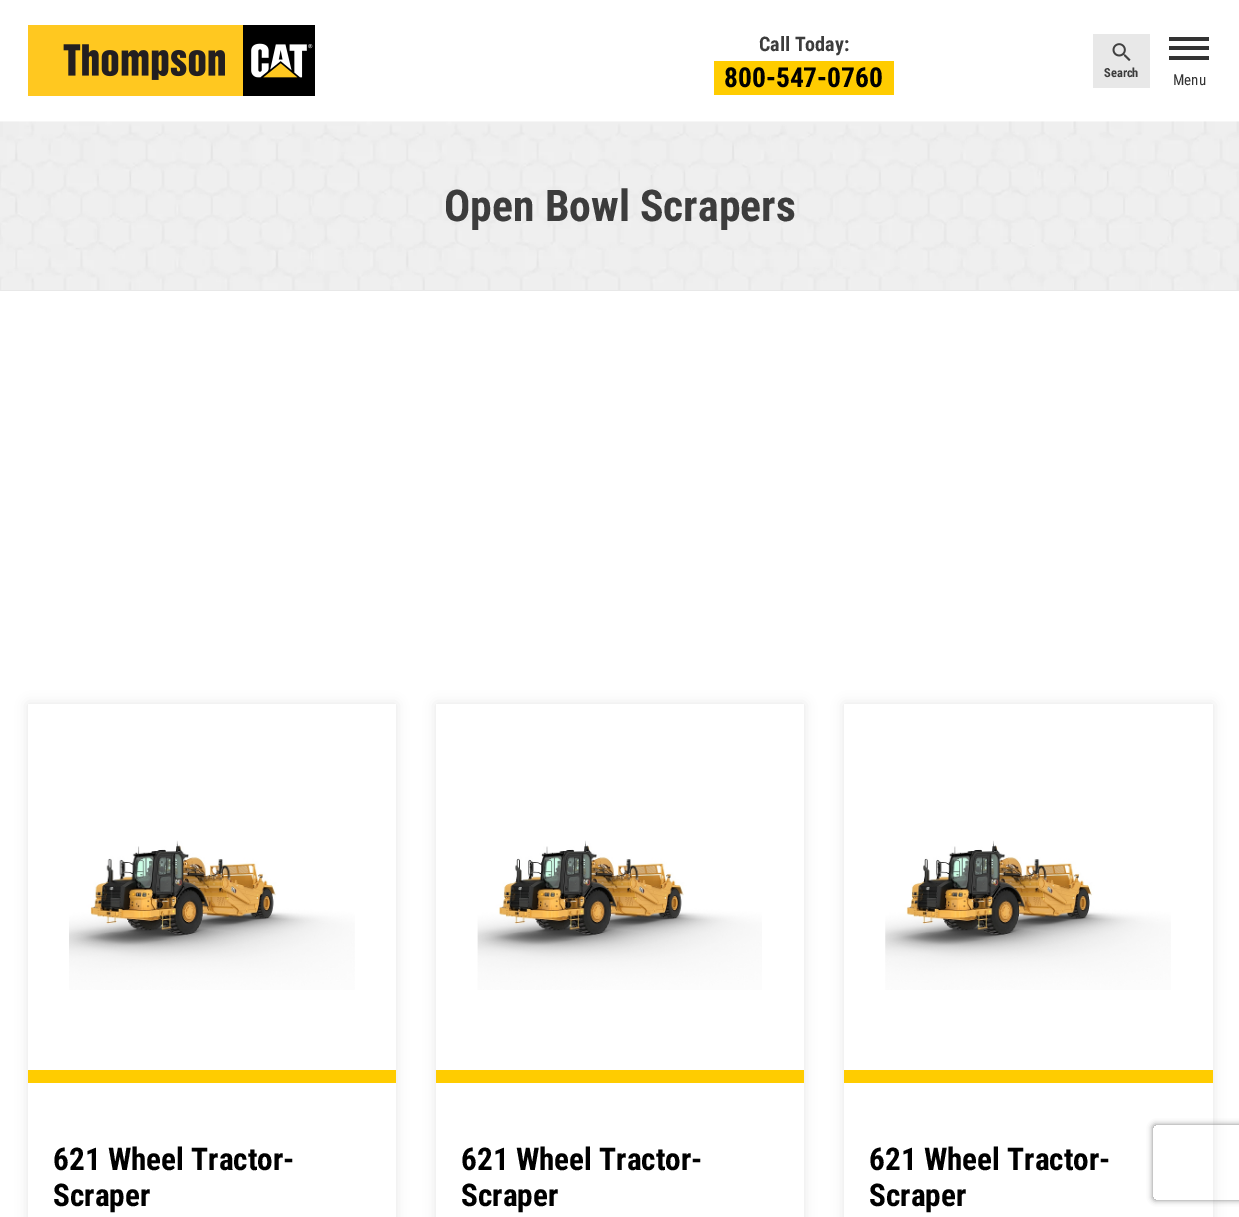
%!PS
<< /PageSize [1239 1217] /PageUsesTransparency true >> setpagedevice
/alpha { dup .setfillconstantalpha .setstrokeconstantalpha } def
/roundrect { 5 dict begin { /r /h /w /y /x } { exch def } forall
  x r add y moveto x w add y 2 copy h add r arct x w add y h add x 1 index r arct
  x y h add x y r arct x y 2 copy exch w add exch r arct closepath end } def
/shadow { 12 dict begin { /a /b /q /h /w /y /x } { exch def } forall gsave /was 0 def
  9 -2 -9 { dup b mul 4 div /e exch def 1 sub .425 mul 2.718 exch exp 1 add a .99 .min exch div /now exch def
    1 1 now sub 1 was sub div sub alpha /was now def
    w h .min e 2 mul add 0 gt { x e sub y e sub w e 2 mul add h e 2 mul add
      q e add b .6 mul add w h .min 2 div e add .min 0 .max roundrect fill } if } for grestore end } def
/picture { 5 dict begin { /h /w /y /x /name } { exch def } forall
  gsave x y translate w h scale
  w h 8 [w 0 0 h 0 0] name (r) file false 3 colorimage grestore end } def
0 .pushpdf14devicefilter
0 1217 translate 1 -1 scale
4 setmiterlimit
1 setgray
0 0 1239 1217 rectfill
(img1.rgb) 28 25 287 71 picture
/RobotoCondensed-Bold [20 0 0 -20 0 0] selectfont
0.235 setgray
759 51 moveto (Call Today:) show
1 0.8 0 setrgbcolor
714 61 180 34 rectfill
/RobotoCondensed-Bold [27.5 0 0 -27.5 0 0] selectfont
0 setgray
724 87 moveto (800-547-0760) show
0.91 setgray
1093 34 57 54 rectfill
(img2.rgb) 1112 43 19 18 picture
/RobotoCondensed-Bold [12.5 0 0 -12.5 0 0] selectfont
0.235 setgray
1104 77 moveto (Search) show
0.2 setgray
newpath 1169 60 moveto 1209 60 lineto 1209 56 lineto 1169 56 lineto closepath 1169 50 moveto 1209 50 lineto 1209 46 lineto 1169 46 lineto closepath 1169 37 moveto 1169 41 lineto 1209 41 lineto 1209 37 lineto closepath fill
/RobotoCondensed-Regular [15 0 0 -15 0 0] selectfont
1173 85 moveto (Menu) show
0.91 setgray
0 290 1239 1 rectfill
(img3.rgb) 0 121 1239 169 picture
/RobotoCondensed-Bold [43.75 0 0 -43.75 0 0] selectfont
0.235 setgray
444 221 moveto (Open Bowl Scrapers) show
gsave
newpath 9 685 moveto 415 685 lineto 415 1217 lineto 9 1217 lineto closepath 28 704 moveto 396 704 lineto 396 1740 lineto 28 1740 lineto closepath eoclip newpath
0 setgray
28 704 368 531 0 6 0.1 shadow
grestore
1 0.8 0 setrgbcolor
28 1070 368 13 rectfill
(img4.rgb) 69 840 286 150 picture
/RobotoCondensed-Bold [31.25 0 0 -31.25 0 0] selectfont
0 setgray
53 1170 moveto (621 Wheel Tractor-) show
53 1206 moveto (Scraper) show
436 704 368 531 0 6 0.1 shadow
1 setgray
436 704 368 513 rectfill
1 0.8 0 setrgbcolor
436 1070 368 13 rectfill
(img5.rgb) 477 840 285 150 picture
0 setgray
461 1170 moveto (621 Wheel Tractor-) show
461 1206 moveto (Scraper) show
844 704 369 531 0 6 0.1 shadow
1 setgray
844 704 369 513 rectfill
1 0.8 0 setrgbcolor
844 1070 369 13 rectfill
(img6.rgb) 885 840 286 150 picture
0 setgray
869 1170 moveto (621 Wheel Tractor-) show
869 1206 moveto (Scraper) show
gsave
newpath 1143 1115 moveto 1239 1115 lineto 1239 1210 lineto 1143 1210 lineto closepath 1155.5 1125 moveto 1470.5 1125 lineto 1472 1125 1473 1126 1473 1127.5 curveto 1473 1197.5 lineto 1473 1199 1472 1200 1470.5 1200 curveto 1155.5 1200 lineto 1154 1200 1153 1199 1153 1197.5 curveto 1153 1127.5 lineto 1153 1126 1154 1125 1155.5 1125 curveto closepath eoclip newpath
0.502 setgray
1153 1125 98 75 2.5 3 1 shadow
grestore
.poppdf14devicefilter showpage
